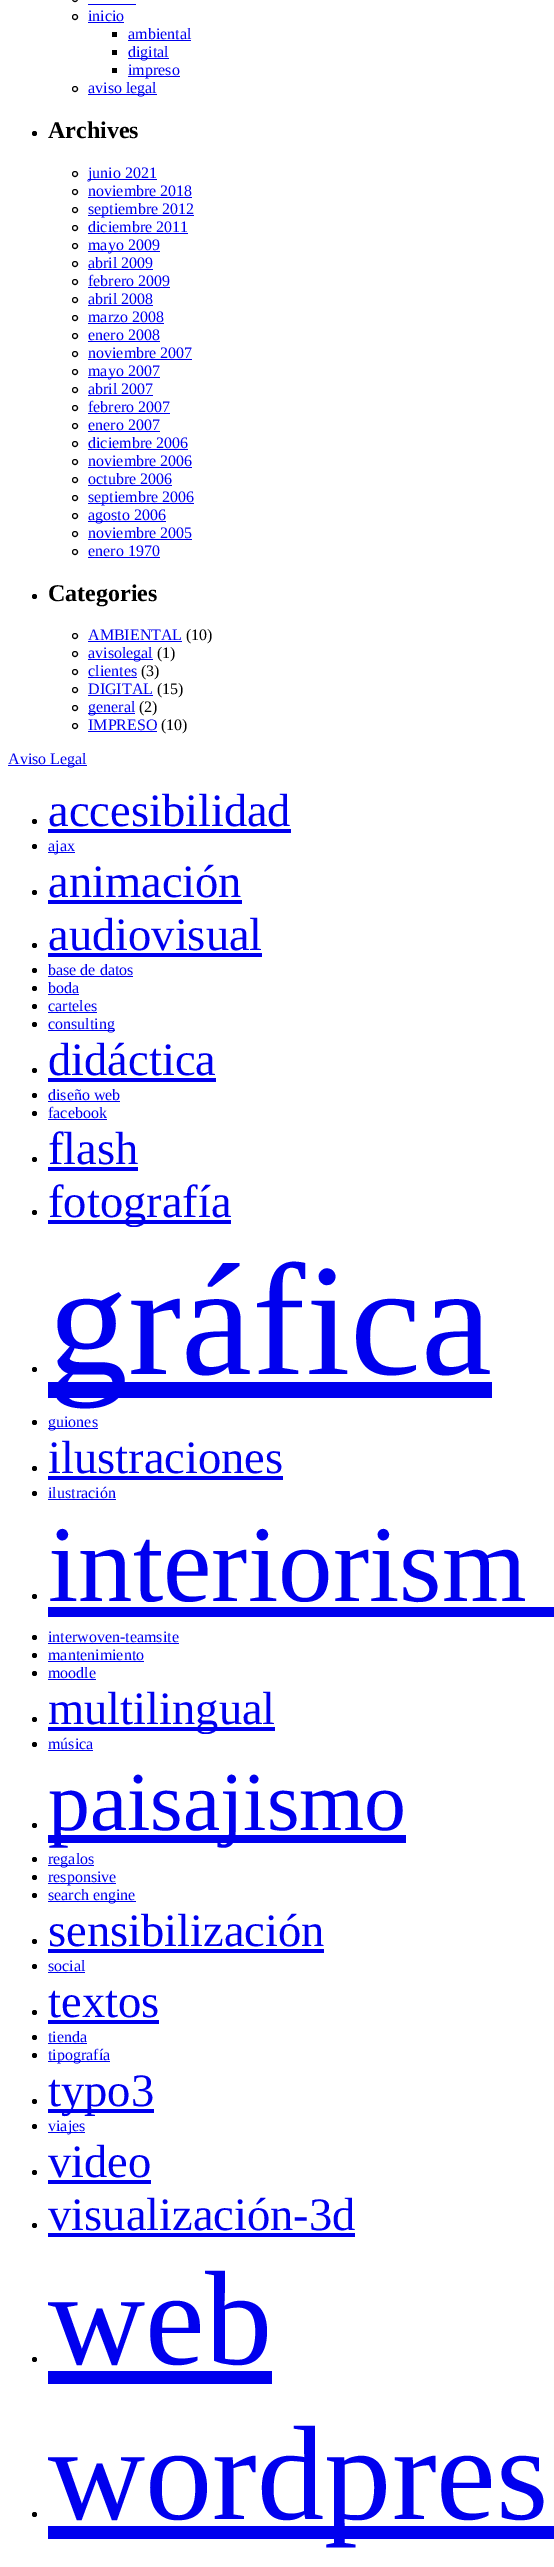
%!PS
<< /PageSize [554 2567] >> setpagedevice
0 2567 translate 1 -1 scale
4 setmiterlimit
1 setgray
0 0 554 2567 rectfill
0 setgray
newpath 75 -1 2.5 0 360 arc closepath stroke
0 0 0.933 setrgbcolor
88 4 48 1 rectfill
0 setgray
newpath 75 17 2.5 0 360 arc closepath stroke
/LiberationSerif-Regular [16 0 0 -16 0 0] selectfont
0 0 0.933 setrgbcolor
88 21 moveto (inicio) show
88 22 36 1 rectfill
0 setgray
112 32 5 5 rectfill
0 0 0.933 setrgbcolor
128 39 moveto (ambiental) show
128 40 63 1 rectfill
0 setgray
112 50 5 5 rectfill
0 0 0.933 setrgbcolor
128 58 41 1 rectfill
128 57 moveto (digital) show
0 setgray
112 68 5 5 rectfill
0 0 0.933 setrgbcolor
128 76 52 1 rectfill
128 75 moveto (impreso) show
0 setgray
newpath 75 89 2.5 0 360 arc closepath stroke
0 0 0.933 setrgbcolor
88 94 69 1 rectfill
88 93 moveto (aviso legal) show
0 setgray
newpath 34.5 133.5 2.5 0 360 arc closepath fill
/LiberationSerif-Bold [24 0 0 -24 0 0] selectfont
48 138 moveto (Archives) show
newpath 75 174 2.5 0 360 arc closepath stroke
0 0 0.933 setrgbcolor
88 179 69 1 rectfill
/LiberationSerif-Regular [16 0 0 -16 0 0] selectfont
88 178 moveto (junio 2021) show
0 setgray
newpath 75 192 2.5 0 360 arc closepath stroke
0 0 0.933 setrgbcolor
88 196 moveto (noviembre 2018) show
88 197 104 1 rectfill
0 setgray
newpath 75 210 2.5 0 360 arc closepath stroke
0 0 0.933 setrgbcolor
88 215 106 1 rectfill
88 214 moveto (septiembre 2012) show
0 setgray
newpath 75 228 2.5 0 360 arc closepath stroke
0 0 0.933 setrgbcolor
88 232 moveto (diciembre 2011) show
88 233 100 1 rectfill
0 setgray
newpath 75 246 2.5 0 360 arc closepath stroke
0 0 0.933 setrgbcolor
88 251 72 1 rectfill
88 250 moveto (mayo 2009) show
0 setgray
newpath 75 264 2.5 0 360 arc closepath stroke
0 0 0.933 setrgbcolor
88 268 moveto (abril 2009) show
88 269 65 1 rectfill
0 setgray
newpath 75 282 2.5 0 360 arc closepath stroke
0 0 0.933 setrgbcolor
88 286 moveto (febrero 2009) show
88 287 82 1 rectfill
0 setgray
newpath 75 300 2.5 0 360 arc closepath stroke
0 0 0.933 setrgbcolor
88 304 moveto (abril 2008) show
88 305 65 1 rectfill
0 setgray
newpath 75 318 2.5 0 360 arc closepath stroke
0 0 0.933 setrgbcolor
88 322 moveto (marzo 2008) show
88 323 76 1 rectfill
0 setgray
newpath 75 336 2.5 0 360 arc closepath stroke
0 0 0.933 setrgbcolor
88 340 moveto (enero 2008) show
88 341 72 1 rectfill
0 setgray
newpath 75 354 2.5 0 360 arc closepath stroke
0 0 0.933 setrgbcolor
88 358 moveto (noviembre 2007) show
88 359 104 1 rectfill
0 setgray
newpath 75 372 2.5 0 360 arc closepath stroke
0 0 0.933 setrgbcolor
88 377 72 1 rectfill
88 376 moveto (mayo 2007) show
0 setgray
newpath 75 390 2.5 0 360 arc closepath stroke
0 0 0.933 setrgbcolor
88 394 moveto (abril 2007) show
88 395 65 1 rectfill
0 setgray
newpath 75 408 2.5 0 360 arc closepath stroke
0 0 0.933 setrgbcolor
88 412 moveto (febrero 2007) show
88 413 82 1 rectfill
0 setgray
newpath 75 426 2.5 0 360 arc closepath stroke
0 0 0.933 setrgbcolor
88 430 moveto (enero 2007) show
88 431 72 1 rectfill
0 setgray
newpath 75 444 2.5 0 360 arc closepath stroke
0 0 0.933 setrgbcolor
88 448 moveto (diciembre 2006) show
88 449 100 1 rectfill
0 setgray
newpath 75 462 2.5 0 360 arc closepath stroke
0 0 0.933 setrgbcolor
88 466 moveto (noviembre 2006) show
88 467 104 1 rectfill
0 setgray
newpath 75 480 2.5 0 360 arc closepath stroke
0 0 0.933 setrgbcolor
88 484 moveto (octubre 2006) show
88 485 84 1 rectfill
0 setgray
newpath 75 498 2.5 0 360 arc closepath stroke
0 0 0.933 setrgbcolor
88 503 106 1 rectfill
88 502 moveto (septiembre 2006) show
0 setgray
newpath 75 516 2.5 0 360 arc closepath stroke
0 0 0.933 setrgbcolor
88 521 78 1 rectfill
88 520 moveto (agosto 2006) show
0 setgray
newpath 75 534 2.5 0 360 arc closepath stroke
0 0 0.933 setrgbcolor
88 538 moveto (noviembre 2005) show
88 539 104 1 rectfill
0 setgray
newpath 75 552 2.5 0 360 arc closepath stroke
0 0 0.933 setrgbcolor
88 556 moveto (enero 1970) show
88 557 72 1 rectfill
0 setgray
newpath 34.5 596.5 2.5 0 360 arc closepath fill
/LiberationSerif-Bold [24 0 0 -24 0 0] selectfont
48 601 moveto (Categories) show
newpath 75 636 2.5 0 360 arc closepath stroke
/LiberationSerif-Regular [16 0 0 -16 0 0] selectfont
0 0 0.933 setrgbcolor
88 640 moveto (AMBIENTAL) show
88 641 94 1 rectfill
0 setgray
186 640 moveto (\(10\)) show
newpath 75 654 2.5 0 360 arc closepath stroke
0 0 0.933 setrgbcolor
88 659 65 1 rectfill
88 658 moveto (avisolegal) show
0 setgray
157 658 moveto (\(1\)) show
newpath 75 672 2.5 0 360 arc closepath stroke
0 0 0.933 setrgbcolor
88 676 moveto (clientes) show
88 677 49 1 rectfill
0 setgray
141 676 moveto (\(3\)) show
newpath 75 690 2.5 0 360 arc closepath stroke
0 0 0.933 setrgbcolor
88 694 moveto (DIGITAL) show
88 695 65 1 rectfill
0 setgray
157 694 moveto (\(15\)) show
newpath 75 708 2.5 0 360 arc closepath stroke
0 0 0.933 setrgbcolor
88 713 47 1 rectfill
88 712 moveto (general) show
0 setgray
139 712 moveto (\(2\)) show
newpath 75 726 2.5 0 360 arc closepath stroke
0 0 0.933 setrgbcolor
88 730 moveto (IMPRESO) show
88 731 69 1 rectfill
0 setgray
161 730 moveto (\(10\)) show
0 0 0.933 setrgbcolor
8 765 79 1 rectfill
8 764 moveto (Aviso Legal) show
0 setgray
newpath 34.5 821.5 2.5 0 360 arc closepath fill
/LiberationSerif-Regular [46.5 0 0 -46.5 0 0] selectfont
0 0 0.933 setrgbcolor
48 826 moveto (accesibilidad) show
48 829 243 4 rectfill
0 setgray
newpath 34.5 846.5 2.5 0 360 arc closepath fill
0 0 0.933 setrgbcolor
48 852 27 1 rectfill
/LiberationSerif-Regular [16 0 0 -16 0 0] selectfont
48 851 moveto (ajax) show
0 setgray
newpath 34.5 892.5 2.5 0 360 arc closepath fill
/LiberationSerif-Regular [46.5 0 0 -46.5 0 0] selectfont
0 0 0.933 setrgbcolor
48 897 moveto (animación) show
48 900 194 4 rectfill
0 setgray
newpath 34.5 945.5 2.5 0 360 arc closepath fill
0 0 0.933 setrgbcolor
48 950 moveto (audiovisual) show
48 953 214 4 rectfill
0 setgray
newpath 34.5 970.5 2.5 0 360 arc closepath fill
/LiberationSerif-Regular [16 0 0 -16 0 0] selectfont
0 0 0.933 setrgbcolor
48 975 moveto (base de datos) show
48 976 85 1 rectfill
0 setgray
newpath 34.5 988.5 2.5 0 360 arc closepath fill
0 0 0.933 setrgbcolor
48 993 moveto (boda) show
48 994 31 1 rectfill
0 setgray
newpath 34.5 1006.5 2.5 0 360 arc closepath fill
0 0 0.933 setrgbcolor
48 1011 moveto (carteles) show
48 1012 49 1 rectfill
0 setgray
newpath 34.5 1024.5 2.5 0 360 arc closepath fill
0 0 0.933 setrgbcolor
48 1030 67 1 rectfill
48 1029 moveto (consulting) show
0 setgray
newpath 34.5 1070.5 2.5 0 360 arc closepath fill
/LiberationSerif-Regular [46.5 0 0 -46.5 0 0] selectfont
0 0 0.933 setrgbcolor
48 1075 moveto (didáctica) show
48 1078 168 4 rectfill
0 setgray
newpath 34.5 1095.5 2.5 0 360 arc closepath fill
/LiberationSerif-Regular [16 0 0 -16 0 0] selectfont
0 0 0.933 setrgbcolor
48 1100 moveto (diseño web) show
48 1101 72 1 rectfill
0 setgray
newpath 34.5 1113.5 2.5 0 360 arc closepath fill
0 0 0.933 setrgbcolor
48 1118 moveto (facebook) show
48 1119 59 1 rectfill
0 setgray
newpath 34.5 1159.5 2.5 0 360 arc closepath fill
/LiberationSerif-Regular [46.5 0 0 -46.5 0 0] selectfont
0 0 0.933 setrgbcolor
48 1164 moveto (flash) show
48 1167 90 4 rectfill
0 setgray
newpath 34.5 1212.5 2.5 0 360 arc closepath fill
0 0 0.933 setrgbcolor
48 1220 183 4 rectfill
48 1217 moveto (fotografía) show
0 setgray
newpath 34.5 1369.5 2.5 0 360 arc closepath fill
0 0 0.933 setrgbcolor
48 1382 444 16 rectfill
/LiberationSerif-Regular [160 0 0 -160 0 0] selectfont
48 1374 moveto (gráfica) show
0 setgray
newpath 34.5 1422.5 2.5 0 360 arc closepath fill
0 0 0.933 setrgbcolor
48 1428 50 1 rectfill
/LiberationSerif-Regular [16 0 0 -16 0 0] selectfont
48 1427 moveto (guiones) show
0 setgray
newpath 34.5 1468.5 2.5 0 360 arc closepath fill
/LiberationSerif-Regular [46.5 0 0 -46.5 0 0] selectfont
0 0 0.933 setrgbcolor
48 1473 moveto (ilustraciones) show
48 1476 235 4 rectfill
0 setgray
newpath 34.5 1493.5 2.5 0 360 arc closepath fill
/LiberationSerif-Regular [16 0 0 -16 0 0] selectfont
0 0 0.933 setrgbcolor
48 1498 moveto (ilustración) show
48 1499 68 1 rectfill
0 setgray
newpath 34.5 1596.5 2.5 0 360 arc closepath fill
/LiberationSerif-Regular [109 0 0 -109 0 0] selectfont
0 0 0.933 setrgbcolor
48 1601 moveto (interiorism) show
48 1607 506 10 rectfill
0 setgray
newpath 34.5 1637.5 2.5 0 360 arc closepath fill
/LiberationSerif-Regular [16 0 0 -16 0 0] selectfont
0 0 0.933 setrgbcolor
48 1642 moveto (interwoven-teamsite) show
48 1643 131 1 rectfill
0 setgray
newpath 34.5 1655.5 2.5 0 360 arc closepath fill
0 0 0.933 setrgbcolor
48 1660 moveto (mantenimiento) show
48 1661 96 1 rectfill
0 setgray
newpath 34.5 1673.5 2.5 0 360 arc closepath fill
0 0 0.933 setrgbcolor
48 1678 moveto (moodle) show
48 1679 48 1 rectfill
0 setgray
newpath 34.5 1719.5 2.5 0 360 arc closepath fill
0 0 0.933 setrgbcolor
48 1727 227 4 rectfill
/LiberationSerif-Regular [46.5 0 0 -46.5 0 0] selectfont
48 1724 moveto (multilingual) show
0 setgray
newpath 34.5 1744.5 2.5 0 360 arc closepath fill
/LiberationSerif-Regular [16 0 0 -16 0 0] selectfont
0 0 0.933 setrgbcolor
48 1749 moveto (música) show
48 1750 45 1 rectfill
0 setgray
newpath 34.5 1825.5 2.5 0 360 arc closepath fill
0 0 0.933 setrgbcolor
48 1835 358 8 rectfill
/LiberationSerif-Regular [83.75 0 0 -83.75 0 0] selectfont
48 1830 moveto (paisajismo) show
0 setgray
newpath 34.5 1859.5 2.5 0 360 arc closepath fill
0 0 0.933 setrgbcolor
48 1865 46 1 rectfill
/LiberationSerif-Regular [16 0 0 -16 0 0] selectfont
48 1864 moveto (regalos) show
0 setgray
newpath 34.5 1877.5 2.5 0 360 arc closepath fill
0 0 0.933 setrgbcolor
48 1883 68 1 rectfill
48 1882 moveto (responsive) show
0 setgray
newpath 34.5 1895.5 2.5 0 360 arc closepath fill
0 0 0.933 setrgbcolor
48 1901 88 1 rectfill
48 1900 moveto (search engine) show
0 setgray
newpath 34.5 1941.5 2.5 0 360 arc closepath fill
/LiberationSerif-Regular [46.5 0 0 -46.5 0 0] selectfont
0 0 0.933 setrgbcolor
48 1946 moveto (sensibilización) show
48 1949 276 4 rectfill
0 setgray
newpath 34.5 1966.5 2.5 0 360 arc closepath fill
/LiberationSerif-Regular [16 0 0 -16 0 0] selectfont
0 0 0.933 setrgbcolor
48 1971 moveto (social) show
48 1972 37 1 rectfill
0 setgray
newpath 34.5 2012.5 2.5 0 360 arc closepath fill
/LiberationSerif-Regular [46.5 0 0 -46.5 0 0] selectfont
0 0 0.933 setrgbcolor
48 2017 moveto (textos) show
48 2020 111 4 rectfill
0 setgray
newpath 34.5 2037.5 2.5 0 360 arc closepath fill
/LiberationSerif-Regular [16 0 0 -16 0 0] selectfont
0 0 0.933 setrgbcolor
48 2042 moveto (tienda) show
48 2043 39 1 rectfill
0 setgray
newpath 34.5 2055.5 2.5 0 360 arc closepath fill
0 0 0.933 setrgbcolor
48 2061 62 1 rectfill
48 2060 moveto (tipografía) show
0 setgray
newpath 34.5 2101.5 2.5 0 360 arc closepath fill
0 0 0.933 setrgbcolor
48 2109 106 4 rectfill
/LiberationSerif-Regular [46.5 0 0 -46.5 0 0] selectfont
48 2106 moveto (typo3) show
0 setgray
newpath 34.5 2126.5 2.5 0 360 arc closepath fill
0 0 0.933 setrgbcolor
48 2132 37 1 rectfill
/LiberationSerif-Regular [16 0 0 -16 0 0] selectfont
48 2131 moveto (viajes) show
0 setgray
newpath 34.5 2172.5 2.5 0 360 arc closepath fill
/LiberationSerif-Regular [46.5 0 0 -46.5 0 0] selectfont
0 0 0.933 setrgbcolor
48 2177 moveto (video) show
48 2180 103 4 rectfill
0 setgray
newpath 34.5 2225.5 2.5 0 360 arc closepath fill
0 0 0.933 setrgbcolor
48 2230 moveto (visualización-3d) show
48 2233 307 4 rectfill
0 setgray
newpath 34.5 2359.5 2.5 0 360 arc closepath fill
/LiberationSerif-Regular [134.5 0 0 -134.5 0 0] selectfont
0 0 0.933 setrgbcolor
48 2364 moveto (web) show
48 2371 224 13 rectfill
0 setgray
newpath 34.5 2514.5 2.5 0 360 arc closepath fill
0 0 0.933 setrgbcolor
48 2526 506 13 rectfill
48 2519 moveto (wordpres) show
showpage
